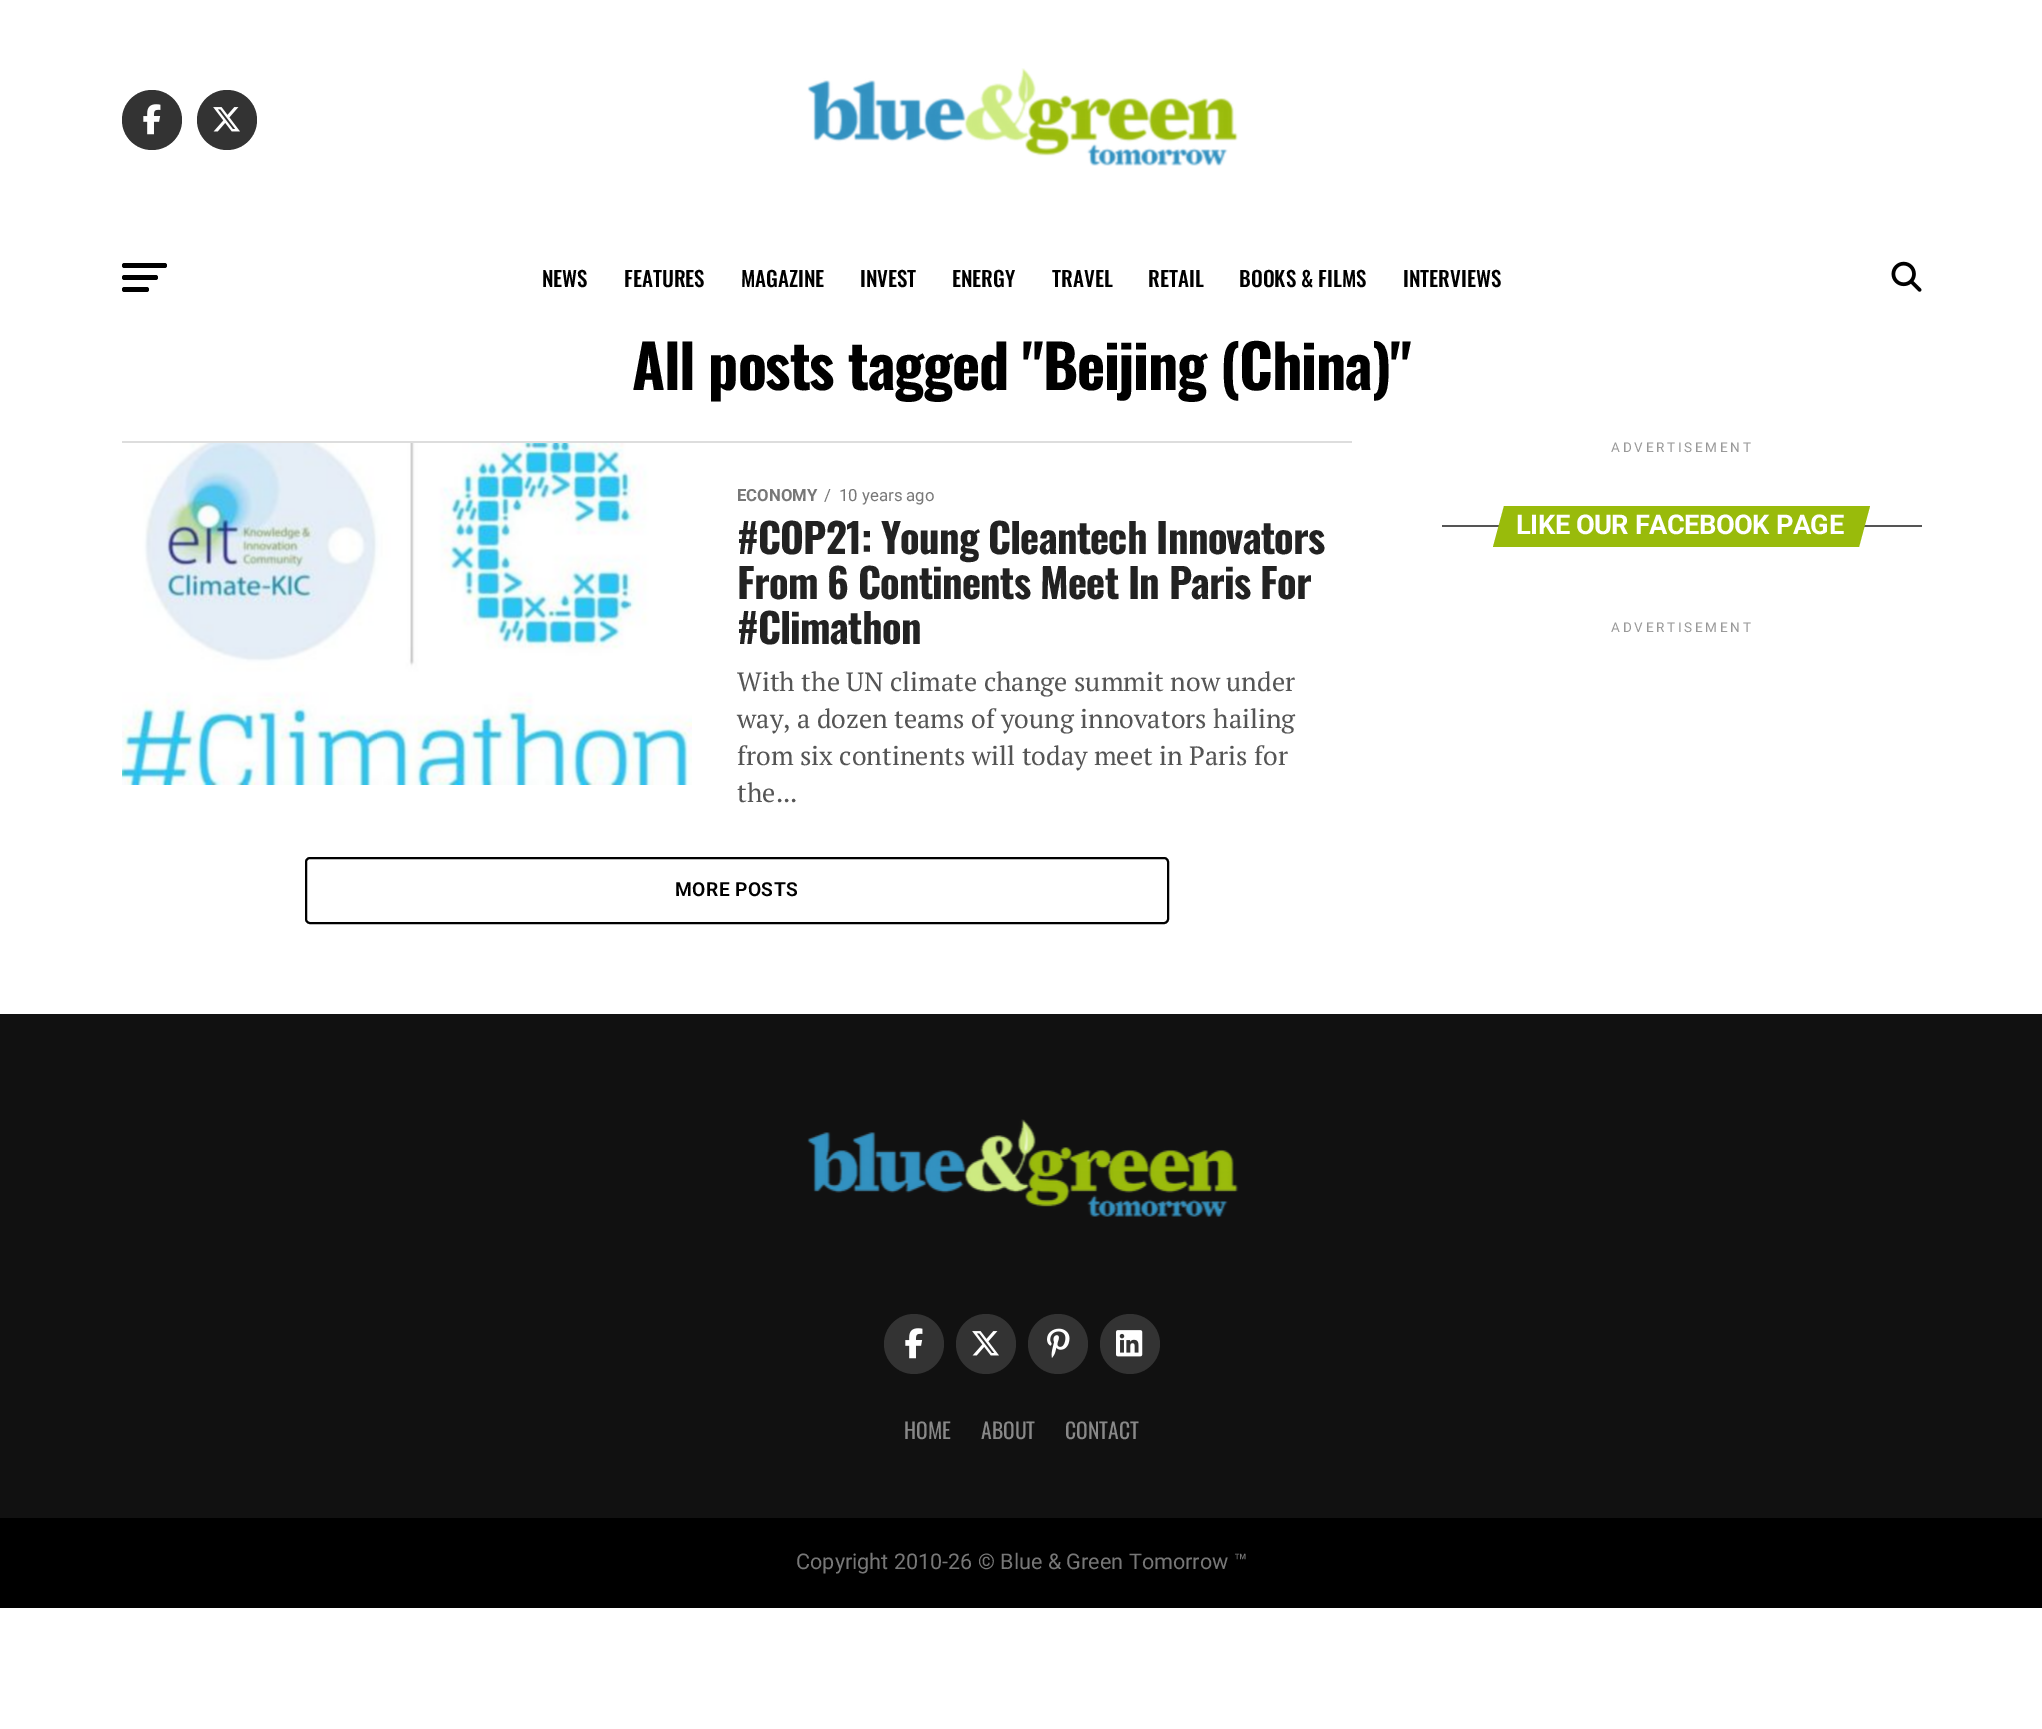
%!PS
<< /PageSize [2042 1729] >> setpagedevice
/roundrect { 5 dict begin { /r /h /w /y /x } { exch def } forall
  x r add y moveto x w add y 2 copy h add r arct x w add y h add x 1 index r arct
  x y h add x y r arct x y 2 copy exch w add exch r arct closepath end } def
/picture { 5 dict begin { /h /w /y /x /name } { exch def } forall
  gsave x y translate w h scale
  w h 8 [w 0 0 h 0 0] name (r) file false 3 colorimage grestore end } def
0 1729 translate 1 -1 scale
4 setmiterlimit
1 setgray
0 0 2042 1729 rectfill
0.2 setgray
newpath 152 120 30 0 360 arc closepath fill
(img1.rgb) 143 104 18 31 picture
newpath 227 120 30 0 360 arc closepath fill
(img2.rgb) 213 107 27 25 picture
(img3.rgb) 807 68 431 98 picture
0 setgray
122 263 45 5 2.5 roundrect fill
122 275 36 5 2.5 roundrect fill
122 287 27 5 2.5 roundrect fill
/Oswald-Medium [21 0 0 -21 0 0] selectfont
542 287 moveto (NEWS) show
624 287 moveto (FEATURES) show
741 287 moveto (MAGAZINE) show
860 287 moveto (INVEST) show
952 287 moveto (ENERGY) show
1052 287 moveto (TRAVEL) show
1148 287 moveto (RETAIL) show
1239 287 moveto (BOOKS & FILMS) show
1403 287 moveto (INTERVIEWS) show
(img4.rgb) 1891 261 31 31 picture
/Oswald-Bold [60 0 0 -60 0 0] selectfont
632 390 moveto -1.2 0 (All posts tagged "Beijing \(China\)") ashow
0.867 setgray
122 441 1230 2 rectfill
(img5.rgb) 122 443 570 342 picture
/Roboto-Bold [16.75 0 0 -16.75 0 0] selectfont
0.467 setgray
737 501 moveto (ECONOMY) show
/Roboto-Regular [16.75 0 0 -16.75 0 0] selectfont
824 501 moveto (/) show
839 501 moveto (10 years ago) show
/Oswald-Bold [40.75 0 0 -40.75 0 0] selectfont
0.133 setgray
737 554 moveto -0.8 0 (#COP21: Young Cleantech Innovators) ashow
737 599 moveto -0.8 0 (From 6 Continents Meet In Paris For) ashow
737 644 moveto -0.8 0 (#Climathon) ashow
/PTSerif-Regular [26.4 0 0 -26.4 0 0] selectfont
0.333 setgray
737 691 moveto (With the UN climate change summit now under) show
737 728 moveto (way, a dozen teams of young innovators hailing) show
737 765 moveto (from six continents will today meet in Paris for) show
737 802 moveto (the...) show
0 setgray
2 setlinewidth
306 858 862 65 4 roundrect stroke
/Roboto-SemiBold [19.25 0 0 -19.25 0 0] selectfont
675 896 moveto 0.4 0 (MORE POSTS) ashow
/Roboto-Regular [13.5 0 0 -13.5 0 0] selectfont
0.6 setgray
1611 452 moveto 2.75 0 (ADVERTISEMENT) ashow
0.333 setgray
1442 525 480 2 rectfill
0.6 0.733 0.043 setrgbcolor
newpath 1504 506 moveto 1870 506 lineto 1859 547 lineto 1493 547 lineto closepath fill
/Roboto-Bold [27.25 0 0 -27.25 0 0] selectfont
1 setgray
1516 534 moveto -0.5 0 (LIKE OUR FACEBOOK PAGE) ashow
/Roboto-Regular [13.5 0 0 -13.5 0 0] selectfont
0.6 setgray
1611 632 moveto 2.75 0 (ADVERTISEMENT) ashow
0.067 setgray
0 1014 2042 504 rectfill
(img6.rgb) 807 1119 432 98 picture
0.2 setgray
newpath 914 1344 30 0 360 arc closepath fill
(img1.rgb) 905 1328 18 31 picture
newpath 986 1344 30 0 360 arc closepath fill
(img2.rgb) 972 1331 27 25 picture
newpath 1058 1344 30 0 360 arc closepath fill
(img7.rgb) 1047 1328 23 30 picture
newpath 1130 1344 30 0 360 arc closepath fill
(img8.rgb) 1116 1330 27 27 picture
/Oswald-Regular [21.6 0 0 -21.6 0 0] selectfont
0.533 setgray
904 1439 moveto (HOME) show
981 1439 moveto (ABOUT) show
1065 1439 moveto (CONTACT) show
0 setgray
0 1518 2042 90 rectfill
/Roboto-Regular [21.6 0 0 -21.6 0 0] selectfont
0.467 setgray
796 1569 moveto (Copyright 2010-26 © Blue & Green Tomorrow ™) show
showpage
